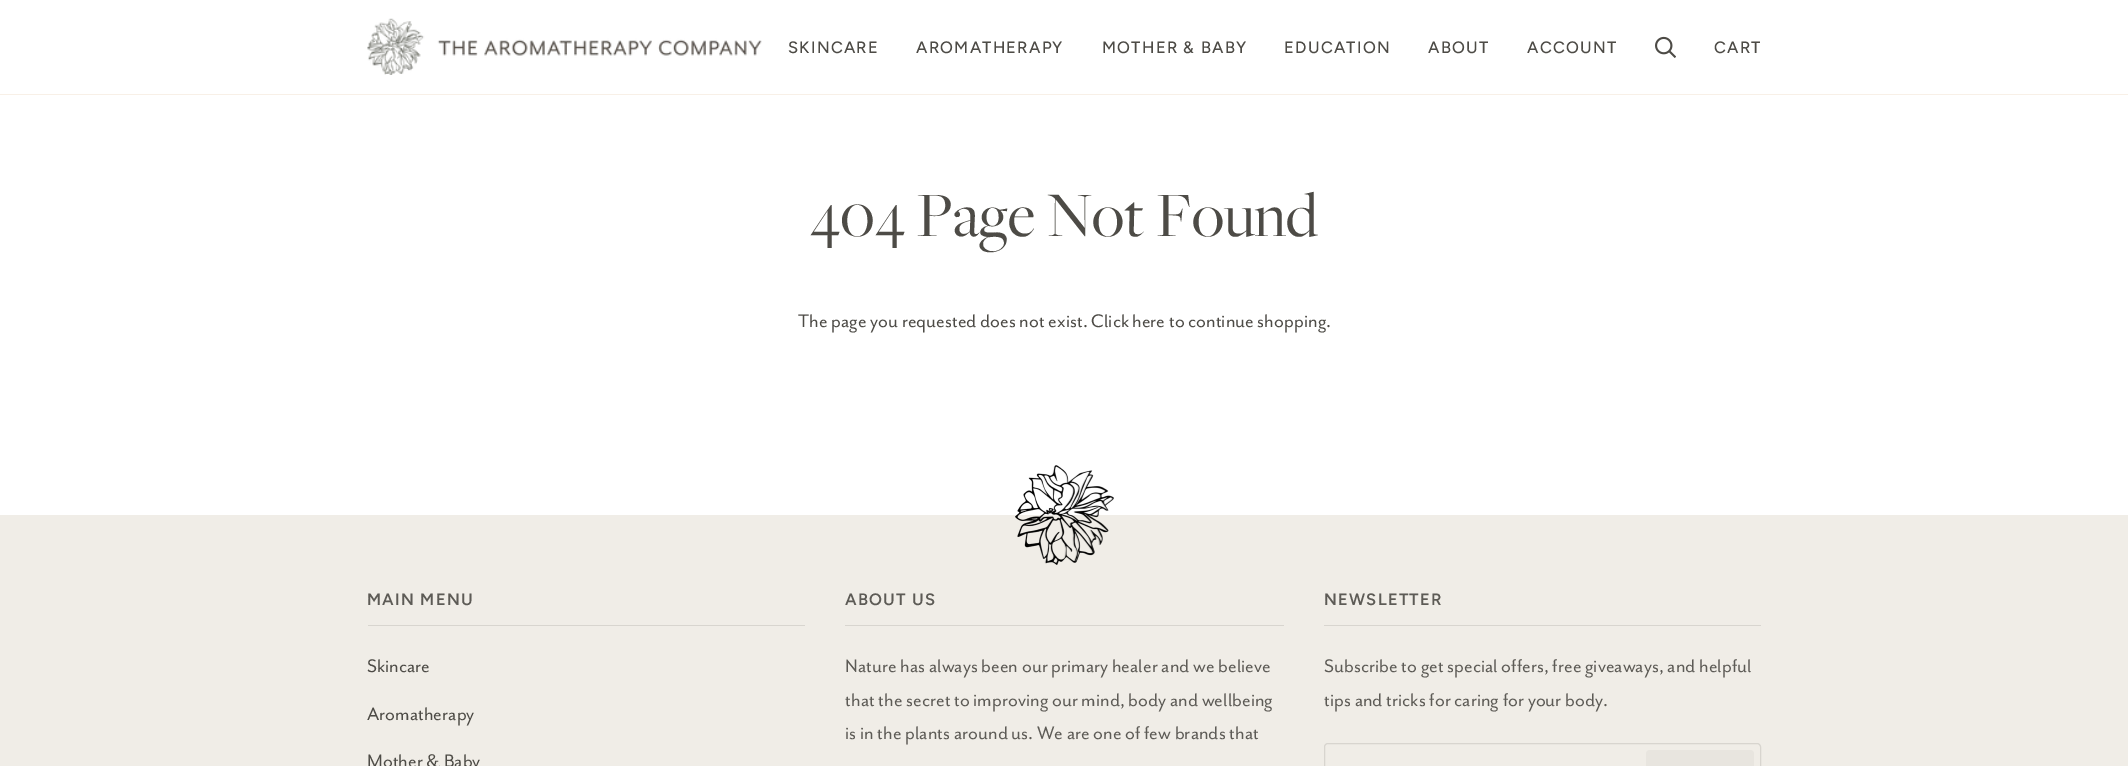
%!PS
<< /PageSize [2128 766] >> setpagedevice
/roundrect { 5 dict begin { /r /h /w /y /x } { exch def } forall
  x r add y moveto x w add y 2 copy h add r arct x w add y h add x 1 index r arct
  x y h add x y r arct x y 2 copy exch w add exch r arct closepath end } def
/picture { 5 dict begin { /h /w /y /x /name } { exch def } forall
  gsave x y translate w h scale
  w h 8 [w 0 0 h 0 0] name (r) file false 3 colorimage grestore end } def
0 766 translate 1 -1 scale
4 setmiterlimit
1 setgray
0 0 2128 766 rectfill
0.973 0.941 0.906 setrgbcolor
0 94 2128 1 rectfill
(img1.rgb) 367 18 395 57 picture
/Figtree-Medium [16.5 0 0 -16.5 0 0] selectfont
0.302 0.294 0.275 setrgbcolor
788 53 moveto 1.25 0 (SKINCARE) ashow
916 53 moveto 1.25 0 (AROMATHERAPY) ashow
1102 53 moveto 1.25 0 (MOTHER & BABY) ashow
1284 53 moveto 1.25 0 (EDUCATION) ashow
1428 53 moveto 1.25 0 (ABOUT) ashow
1527 53 moveto 1.25 0 (ACCOUNT) ashow
(img2.rgb) 1655 36 21 22 picture
1714 53 moveto 1.25 0 (CART) ashow
/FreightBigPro-Regular [65.75 0 0 -65.75 0 0] selectfont
810 236 moveto (404 Page Not Found) show
/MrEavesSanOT-Regular [20.9 0 0 -20.9 0 0] selectfont
798 327 moveto (The page you requested does not exist. Click) show
1132 327 moveto (here to continue shopping.) show
0.941 0.929 0.906 setrgbcolor
0 515 2128 251 rectfill
(img3.rgb) 1015 465 99 100 picture
0.847 0.835 0.812 setrgbcolor
368 625 437 1 rectfill
/Figtree-SemiBold [16.5 0 0 -16.5 0 0] selectfont
0.365 0.357 0.337 setrgbcolor
367 605 moveto 1.25 0 (MAIN MENU) ashow
/MrEavesSanOT-Regular [20.9 0 0 -20.9 0 0] selectfont
0.302 0.294 0.275 setrgbcolor
367 672 moveto (Skincare) show
367 720 moveto (Aromatherapy) show
367 767 moveto (Mother & Baby) show
0.847 0.835 0.812 setrgbcolor
845 625 439 1 rectfill
/Figtree-SemiBold [16.5 0 0 -16.5 0 0] selectfont
0.365 0.357 0.337 setrgbcolor
845 605 moveto 1.25 0 (ABOUT US) ashow
/MrEavesSanOT-Regular [20.9 0 0 -20.9 0 0] selectfont
845 672 moveto (Nature has always been our primary healer and we believe) show
845 706 moveto (that the secret to improving our mind, body and wellbeing) show
845 739 moveto (is in the plants around us. We are one of few brands that) show
0.847 0.835 0.812 setrgbcolor
1324 625 437 1 rectfill
/Figtree-SemiBold [16.5 0 0 -16.5 0 0] selectfont
0.365 0.357 0.337 setrgbcolor
1324 605 moveto 1.25 0 (NEWSLETTER) ashow
/MrEavesSanOT-Regular [20.9 0 0 -20.9 0 0] selectfont
1324 672 moveto (Subscribe to get special offers, free giveaways, and helpful) show
1324 706 moveto (tips and tricks for caring for your body.) show
0.847 0.835 0.812 setrgbcolor
1324.5 743.5 436 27 3.5 roundrect stroke
0.91 0.898 0.875 setrgbcolor
1646 750 108 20 4 roundrect fill
showpage
